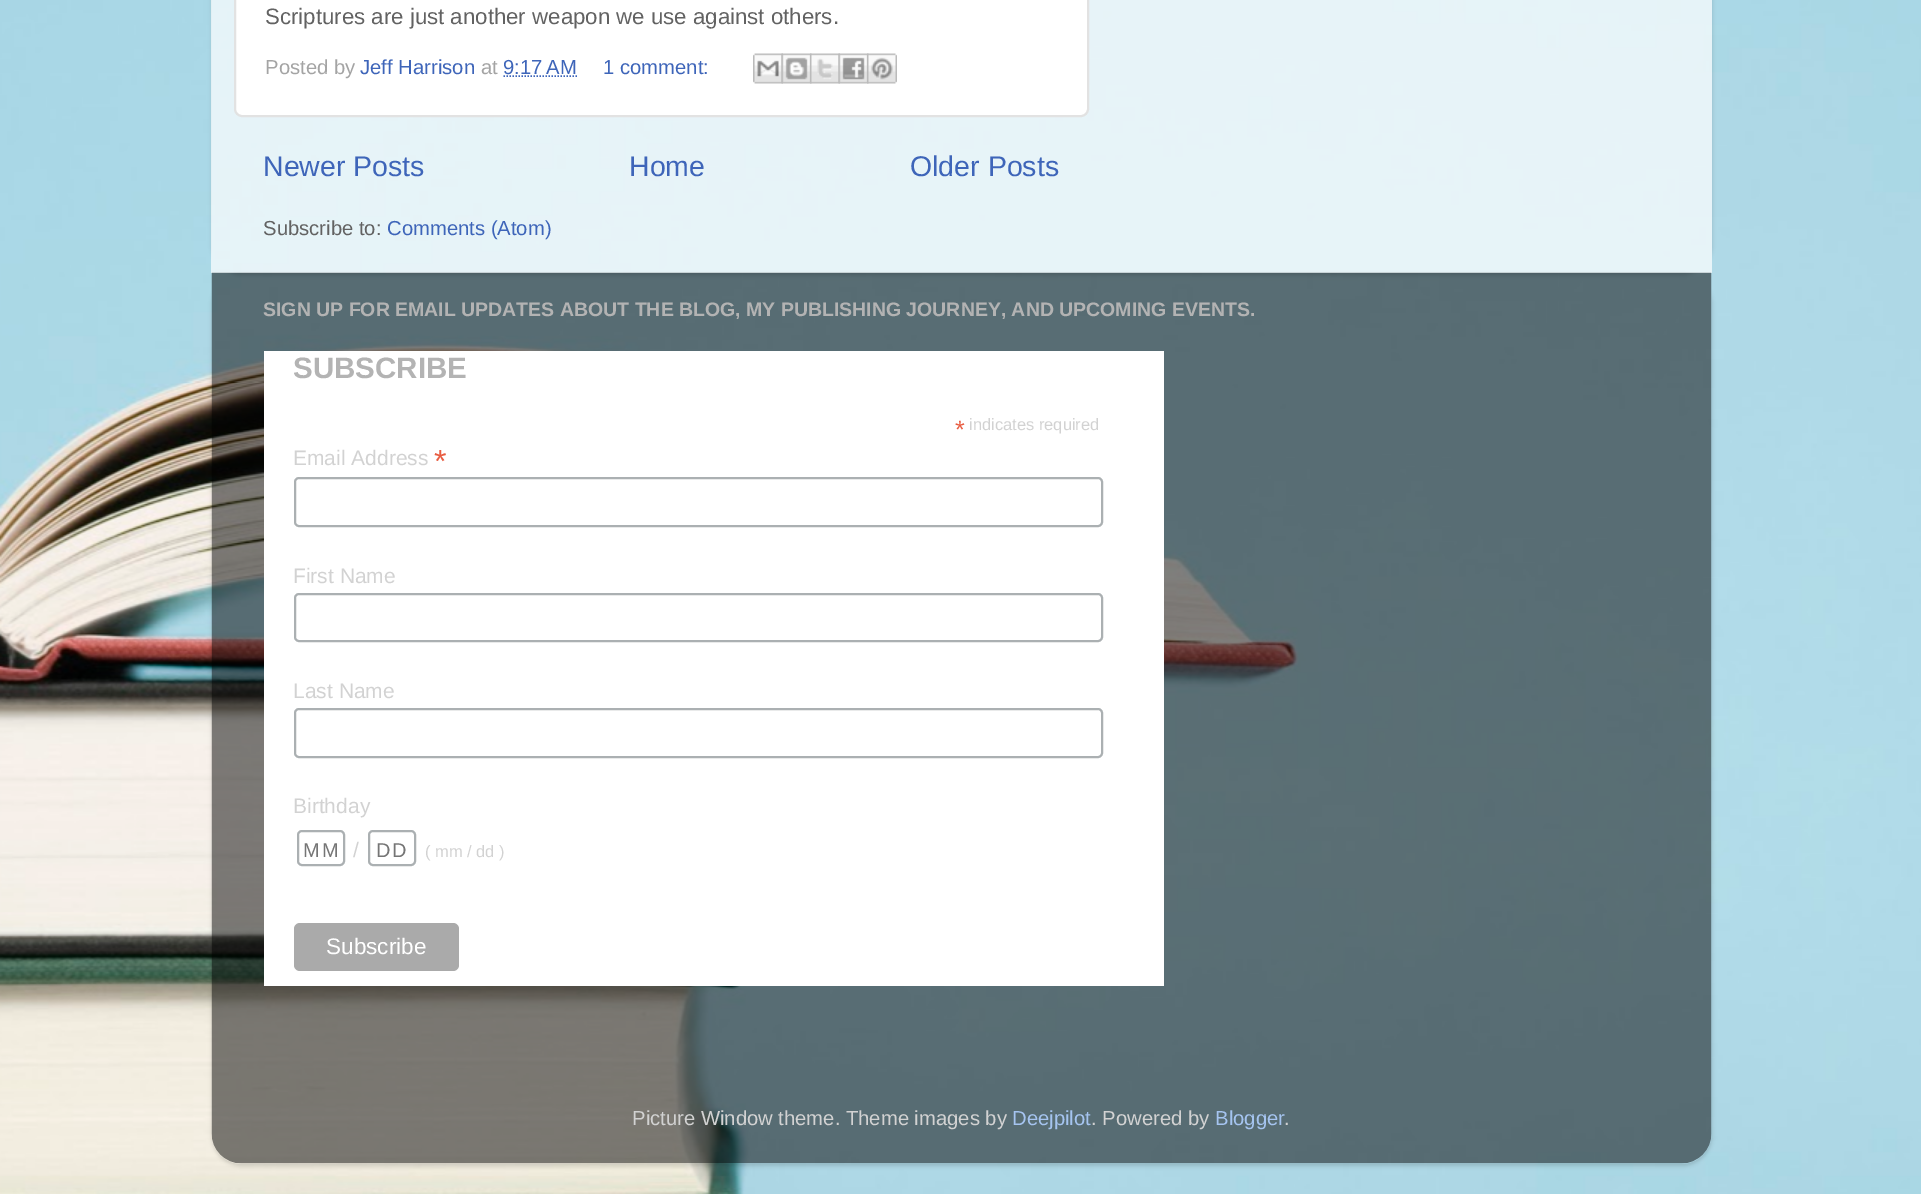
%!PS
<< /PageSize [1921 1194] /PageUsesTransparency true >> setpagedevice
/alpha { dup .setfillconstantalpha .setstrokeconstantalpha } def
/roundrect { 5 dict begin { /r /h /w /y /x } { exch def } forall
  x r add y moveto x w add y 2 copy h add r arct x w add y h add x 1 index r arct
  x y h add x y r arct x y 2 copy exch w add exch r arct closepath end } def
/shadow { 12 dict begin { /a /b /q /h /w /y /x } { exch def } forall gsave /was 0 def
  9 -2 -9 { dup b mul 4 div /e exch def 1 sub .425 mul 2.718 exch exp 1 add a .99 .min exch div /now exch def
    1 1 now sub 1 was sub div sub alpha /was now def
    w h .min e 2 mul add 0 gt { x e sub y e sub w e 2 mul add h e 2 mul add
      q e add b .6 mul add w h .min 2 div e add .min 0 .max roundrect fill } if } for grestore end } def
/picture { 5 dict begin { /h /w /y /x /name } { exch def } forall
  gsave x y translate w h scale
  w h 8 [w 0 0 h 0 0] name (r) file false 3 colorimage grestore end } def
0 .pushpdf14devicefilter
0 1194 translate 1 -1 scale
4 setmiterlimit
1 setgray
0 0 1921 1194 rectfill
(img1.rgb) 0 0 1921 1194 picture
gsave
newpath 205 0 moveto 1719 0 lineto 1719 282 lineto 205 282 lineto closepath 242 -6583 moveto 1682 -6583 lineto 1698.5 -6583 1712 -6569.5 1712 -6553 curveto 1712 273 lineto 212 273 lineto 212 -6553 lineto 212 -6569.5 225.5 -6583 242 -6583 curveto closepath eoclip newpath
0 setgray
212 -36 1500 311 30 2 0.15 shadow
grestore
0.7 alpha
211 0 1501 273 rectfill
1 alpha
235 -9 853 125 7 roundrect gsave fill grestore
0.886 setgray
2 setlinewidth
stroke
/LiberationSans-Regular [22.25 0 0 -22.25 0 0] selectfont
0.384 setgray
265 24 moveto (Scriptures are just another weapon we use against others.) show
/LiberationSans-Regular [20.25 0 0 -20.25 0 0] selectfont
0.643 setgray
265 74 moveto (Posted by) show
0.243 0.396 0.725 setrgbcolor
360 74 moveto (Jeff Harrison) show
0.643 setgray
481 74 moveto (at) show
0.243 0.396 0.725 setrgbcolor
503 74 moveto (9:17 AM) show
1.5 setlinewidth
[1.5 1.5] 0 setdash
newpath 503.5 76 moveto 577.5 76 lineto stroke
603 74 moveto (1 comment:) show
(img2.rgb) 753 53 30 31 picture
(img3.rgb) 781 53 31 31 picture
(img4.rgb) 810 53 30 31 picture
(img5.rgb) 838 53 31 31 picture
(img6.rgb) 867 53 30 31 picture
/LiberationSans-Regular [28.5 0 0 -28.5 0 0] selectfont
263 176 moveto (Newer Posts) show
629 176 moveto (Home) show
910 176 moveto (Older Posts) show
/LiberationSans-Regular [20.25 0 0 -20.25 0 0] selectfont
0.384 setgray
263 235 moveto (Subscribe to:) show
0.243 0.396 0.725 setrgbcolor
387 235 moveto (Comments \(Atom\)) show
gsave
newpath 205 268 moveto 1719 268 lineto 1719 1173 lineto 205 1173 lineto closepath 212 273 moveto 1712 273 lineto 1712 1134 lineto 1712 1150.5 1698.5 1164 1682 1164 curveto 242 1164 lineto 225.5 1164 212 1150.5 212 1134 curveto closepath eoclip newpath
0 setgray
212 275 1500 891 30 2 0.15 shadow
grestore
(img7.rgb) 211 272 1501 892 picture
/LiberationSans-Bold [19.5 0 0 -19.5 0 0] selectfont
0.702 setgray
263 316 moveto (SIGN UP FOR EMAIL UPDATES ABOUT THE BLOG, MY PUBLISHING JOURNEY, AND UPCOMING EVENTS.) show
1 setgray
264 351 900 635 rectfill
/LiberationSans-Bold [29.5 0 0 -29.5 0 0] selectfont
0.702 setgray
293 378 moveto (SUBSCRIBE) show
/LiberationSans-Regular [25 0 0 -25 0 0] selectfont
0.91 0.361 0.255 setrgbcolor
955 438 moveto (*) show
/LiberationSans-Regular [16.5 0 0 -16.5 0 0] selectfont
0.824 setgray
969 430 moveto (indicates required) show
/LiberationSans-Regular [21 0 0 -21 0 0] selectfont
293 465 moveto (Email Address) show
/LiberationSans-Regular [32 0 0 -32 0 0] selectfont
0.91 0.361 0.255 setrgbcolor
434 472 moveto (*) show
0.671 0.69 0.698 setrgbcolor
2 setlinewidth
[] 0 setdash
295 478 807 48 4 roundrect stroke
/LiberationSans-Regular [21 0 0 -21 0 0] selectfont
0.824 setgray
293 583 moveto (First Name) show
0.671 0.69 0.698 setrgbcolor
295 594 807 47 4 roundrect stroke
0.824 setgray
293 698 moveto (Last Name) show
0.671 0.69 0.698 setrgbcolor
295 709 807 48 4 roundrect stroke
0.824 setgray
293 813 moveto (Birthday) show
0.671 0.69 0.698 setrgbcolor
298 831 46 34 4 roundrect stroke
/LiberationSans-Regular [20 0 0 -20 0 0] selectfont
0.459 setgray
303 857 moveto 2 0 (MM) ashow
/LiberationSans-Regular [21 0 0 -21 0 0] selectfont
0.824 setgray
353 857 moveto (/) show
0.671 0.69 0.698 setrgbcolor
369 831 46 34 4 roundrect stroke
/LiberationSans-Regular [20 0 0 -20 0 0] selectfont
0.459 setgray
376 857 moveto 2 0 (DD) ashow
/LiberationSans-Regular [16.5 0 0 -16.5 0 0] selectfont
0.824 setgray
425 857 moveto (\( mm / dd \)) show
0.667 setgray
294 923 165 48 6 roundrect fill
/LiberationSans-Regular [22.5 0 0 -22.5 0 0] selectfont
1 setgray
326 954 moveto (Subscribe) show
/LiberationSans-Regular [20.25 0 0 -20.25 0 0] selectfont
0.824 setgray
632 1125 moveto (Picture Window theme. Theme images by) show
0.647 0.769 0.941 setrgbcolor
1012 1125 moveto (Deejpilot) show
0.824 setgray
1091 1125 moveto (. Powered by) show
0.647 0.769 0.941 setrgbcolor
1215 1125 moveto (Blogger) show
0.824 setgray
1284 1125 moveto (.) show
.poppdf14devicefilter showpage
